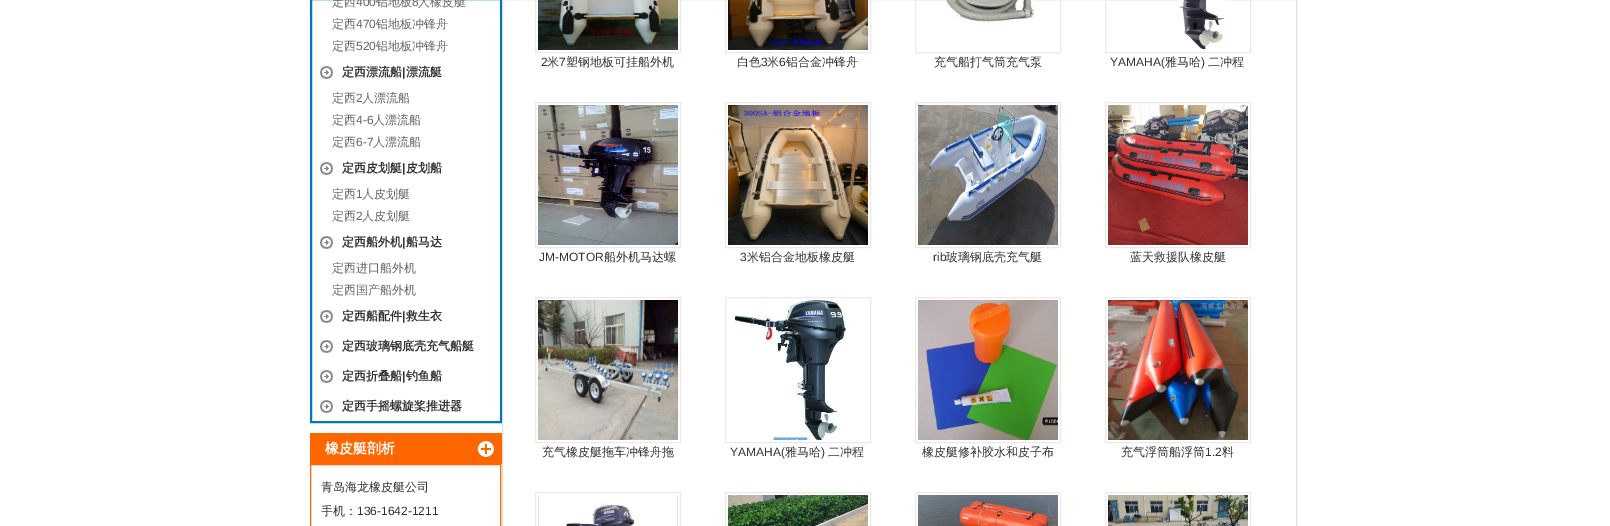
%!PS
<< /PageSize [1610 526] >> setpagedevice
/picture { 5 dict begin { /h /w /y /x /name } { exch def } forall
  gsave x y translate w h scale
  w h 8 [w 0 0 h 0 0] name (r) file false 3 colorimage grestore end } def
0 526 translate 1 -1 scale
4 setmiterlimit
1 setgray
0 0 1610 526 rectfill
0 0.471 0.753 setrgbcolor
2 setlinewidth
311 -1 190 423 rectstroke
/WenQuanYiZenHei-Medium [12 0 0 -12 0 0] selectfont
0.4 setgray
332 6 moveto (定西) show
/LiberationSans-Regular [12 0 0 -12 0 0] selectfont
356 6 moveto (400) show
/WenQuanYiZenHei-Medium [12 0 0 -12 0 0] selectfont
376 6 moveto (铝地板) show
/LiberationSans-Regular [12 0 0 -12 0 0] selectfont
412 6 moveto (8) show
/WenQuanYiZenHei-Medium [12 0 0 -12 0 0] selectfont
418 6 moveto (人橡皮艇) show
332 28 moveto (定西) show
/LiberationSans-Regular [12 0 0 -12 0 0] selectfont
356 28 moveto (470) show
/WenQuanYiZenHei-Medium [12 0 0 -12 0 0] selectfont
376 28 moveto (铝地板冲锋舟) show
332 50 moveto (定西) show
/LiberationSans-Regular [12 0 0 -12 0 0] selectfont
356 50 moveto (520) show
/WenQuanYiZenHei-Medium [12 0 0 -12 0 0] selectfont
376 50 moveto (铝地板冲锋舟) show
(img1.rgb) 320 66 13 13 picture
/WenQuanYiZenHei-Bold [12 0 0 -12 0 0] selectfont
0.2 setgray
342 76 moveto (定西漂流船 漂流艇) show
/LiberationSans-Bold [12 0 0 -12 0 0] selectfont
402 76 moveto (|) show
/WenQuanYiZenHei-Medium [12 0 0 -12 0 0] selectfont
0.4 setgray
332 102 moveto (定西) show
/LiberationSans-Regular [12 0 0 -12 0 0] selectfont
356 102 moveto (2) show
/WenQuanYiZenHei-Medium [12 0 0 -12 0 0] selectfont
362 102 moveto (人漂流船) show
332 124 moveto (定西) show
/LiberationSans-Regular [12 0 0 -12 0 0] selectfont
356 124 moveto (4-6) show
/WenQuanYiZenHei-Medium [12 0 0 -12 0 0] selectfont
373 124 moveto (人漂流船) show
332 146 moveto (定西) show
/LiberationSans-Regular [12 0 0 -12 0 0] selectfont
356 146 moveto (6-7) show
/WenQuanYiZenHei-Medium [12 0 0 -12 0 0] selectfont
373 146 moveto (人漂流船) show
(img1.rgb) 320 162 13 13 picture
/WenQuanYiZenHei-Bold [12 0 0 -12 0 0] selectfont
0.2 setgray
342 172 moveto (定西皮划艇 皮划船) show
/LiberationSans-Bold [12 0 0 -12 0 0] selectfont
402 172 moveto (|) show
/WenQuanYiZenHei-Medium [12 0 0 -12 0 0] selectfont
0.4 setgray
332 198 moveto (定西) show
/LiberationSans-Regular [12 0 0 -12 0 0] selectfont
356 198 moveto (1) show
/WenQuanYiZenHei-Medium [12 0 0 -12 0 0] selectfont
362 198 moveto (人皮划艇) show
332 220 moveto (定西) show
/LiberationSans-Regular [12 0 0 -12 0 0] selectfont
356 220 moveto (2) show
/WenQuanYiZenHei-Medium [12 0 0 -12 0 0] selectfont
362 220 moveto (人皮划艇) show
(img1.rgb) 320 236 13 13 picture
/WenQuanYiZenHei-Bold [12 0 0 -12 0 0] selectfont
0.2 setgray
342 246 moveto (定西船外机 船马达) show
/LiberationSans-Bold [12 0 0 -12 0 0] selectfont
402 246 moveto (|) show
/WenQuanYiZenHei-Medium [12 0 0 -12 0 0] selectfont
0.4 setgray
332 272 moveto (定西进口船外机) show
332 294 moveto (定西国产船外机) show
(img1.rgb) 320 310 13 13 picture
/WenQuanYiZenHei-Bold [12 0 0 -12 0 0] selectfont
0.2 setgray
342 320 moveto (定西船配件 救生衣) show
/LiberationSans-Bold [12 0 0 -12 0 0] selectfont
402 320 moveto (|) show
(img1.rgb) 320 340 13 13 picture
/WenQuanYiZenHei-Bold [12 0 0 -12 0 0] selectfont
342 350 moveto (定西玻璃钢底壳充气船艇) show
(img1.rgb) 320 370 13 13 picture
342 380 moveto (定西折叠船 钓鱼船) show
/LiberationSans-Bold [12 0 0 -12 0 0] selectfont
402 380 moveto (|) show
(img1.rgb) 320 400 13 13 picture
/WenQuanYiZenHei-Bold [12 0 0 -12 0 0] selectfont
342 410 moveto (定西手摇螺旋桨推进器) show
(img2.rgb) 310 433 192 31 picture
/WenQuanYiZenHei-Bold [14 0 0 -14 0 0] selectfont
1 setgray
325 453 moveto (橡皮艇剖析) show
1 0.4 0 setrgbcolor
1 setlinewidth
310.5 464.5 190 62 rectstroke
/WenQuanYiZenHei-Medium [12 0 0 -12 0 0] selectfont
0.2 setgray
321 491 moveto (青岛海龙橡皮艇公司) show
321 515 moveto (手机：) show
/LiberationSans-Regular [12 0 0 -12 0 0] selectfont
357 515 moveto (136-1642-1211) show
0.875 setgray
502.5 -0.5 794 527 rectstroke
0.918 setgray
535.5 -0.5 145 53 rectstroke
(img3.rgb) 538 0 140 50 picture
0.2 setgray
541 66 moveto (2) show
/WenQuanYiZenHei-Medium [12 0 0 -12 0 0] selectfont
547 66 moveto (米) show
/LiberationSans-Regular [12 0 0 -12 0 0] selectfont
559 66 moveto (7) show
/WenQuanYiZenHei-Medium [12 0 0 -12 0 0] selectfont
566 66 moveto (塑钢地板可挂船外机) show
0.918 setgray
725.5 -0.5 145 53 rectstroke
(img4.rgb) 728 0 140 50 picture
0.2 setgray
737 66 moveto (白色) show
/LiberationSans-Regular [12 0 0 -12 0 0] selectfont
761 66 moveto (3) show
/WenQuanYiZenHei-Medium [12 0 0 -12 0 0] selectfont
767 66 moveto (米) show
/LiberationSans-Regular [12 0 0 -12 0 0] selectfont
779 66 moveto (6) show
/WenQuanYiZenHei-Medium [12 0 0 -12 0 0] selectfont
786 66 moveto (铝合金冲锋舟) show
0.918 setgray
915.5 -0.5 145 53 rectstroke
(img5.rgb) 944 0 91 23 picture
0.2 setgray
934 66 moveto (充气船打气筒充气泵) show
0.918 setgray
1105.5 -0.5 145 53 rectstroke
(img6.rgb) 1178 0 47 50 picture
/LiberationSans-Regular [12 0 0 -12 0 0] selectfont
0.2 setgray
1110 66 moveto (YAMAHA\() show
/WenQuanYiZenHei-Medium [12 0 0 -12 0 0] selectfont
1165 66 moveto (雅马哈) show
/LiberationSans-Regular [12 0 0 -12 0 0] selectfont
1201 66 moveto (\)) show
/WenQuanYiZenHei-Medium [12 0 0 -12 0 0] selectfont
1208 66 moveto (二冲程) show
0.918 setgray
535.5 102.5 145 145 rectstroke
(img7.rgb) 538 105 140 140 picture
/LiberationSans-Regular [12 0 0 -12 0 0] selectfont
0.2 setgray
539 261 moveto (JM-MOTOR) show
/WenQuanYiZenHei-Medium [12 0 0 -12 0 0] selectfont
604 261 moveto (船外机马达螺) show
0.918 setgray
725.5 102.5 145 145 rectstroke
(img8.rgb) 728 105 140 140 picture
/LiberationSans-Regular [12 0 0 -12 0 0] selectfont
0.2 setgray
740 261 moveto (3) show
/WenQuanYiZenHei-Medium [12 0 0 -12 0 0] selectfont
747 261 moveto (米铝合金地板橡皮艇) show
0.918 setgray
915.5 102.5 145 145 rectstroke
(img9.rgb) 918 105 140 140 picture
/LiberationSans-Regular [12 0 0 -12 0 0] selectfont
0.2 setgray
933 261 moveto (rib) show
/WenQuanYiZenHei-Medium [12 0 0 -12 0 0] selectfont
946 261 moveto (玻璃钢底壳充气艇) show
0.918 setgray
1105.5 102.5 145 145 rectstroke
(img10.rgb) 1108 105 140 140 picture
0.2 setgray
1130 261 moveto (蓝天救援队橡皮艇) show
0.918 setgray
535.5 297.5 145 145 rectstroke
(img11.rgb) 538 300 140 140 picture
0.2 setgray
542 456 moveto (充气橡皮艇拖车冲锋舟拖) show
0.918 setgray
725.5 297.5 145 145 rectstroke
(img12.rgb) 734 300 112 140 picture
/LiberationSans-Regular [12 0 0 -12 0 0] selectfont
0.2 setgray
730 456 moveto (YAMAHA\() show
/WenQuanYiZenHei-Medium [12 0 0 -12 0 0] selectfont
785 456 moveto (雅马哈) show
/LiberationSans-Regular [12 0 0 -12 0 0] selectfont
821 456 moveto (\)) show
/WenQuanYiZenHei-Medium [12 0 0 -12 0 0] selectfont
828 456 moveto (二冲程) show
0.918 setgray
915.5 297.5 145 145 rectstroke
(img13.rgb) 918 300 140 140 picture
0.2 setgray
922 456 moveto (橡皮艇修补胶水和皮子布) show
0.918 setgray
1105.5 297.5 145 145 rectstroke
(img14.rgb) 1108 300 140 140 picture
0.2 setgray
1121 456 moveto (充气浮筒船浮筒) show
/LiberationSans-Regular [12 0 0 -12 0 0] selectfont
1205 456 moveto (1.2) show
/WenQuanYiZenHei-Medium [12 0 0 -12 0 0] selectfont
1222 456 moveto (料) show
0.918 setgray
535.5 492.5 145 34 rectstroke
(img15.rgb) 538 495 140 31 picture
725.5 492.5 145 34 rectstroke
(img16.rgb) 728 495 140 31 picture
915.5 492.5 145 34 rectstroke
(img17.rgb) 918 495 140 31 picture
1105.5 492.5 145 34 rectstroke
(img18.rgb) 1108 495 140 31 picture
showpage
